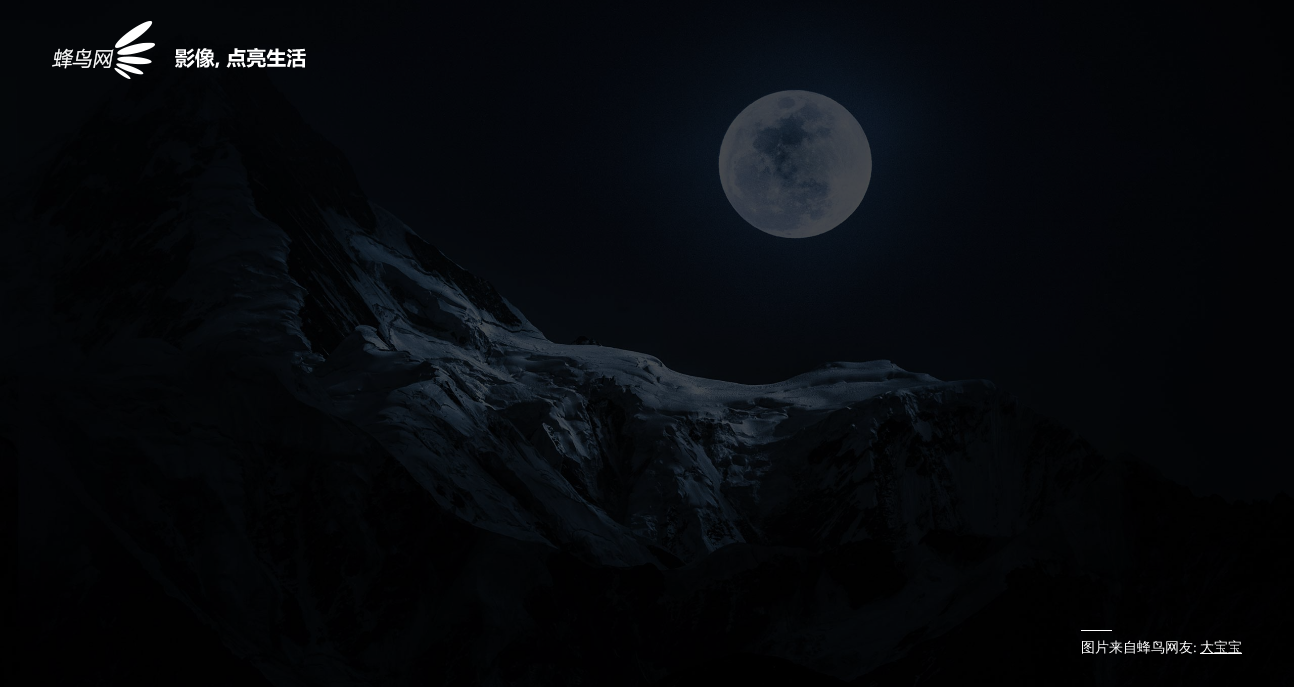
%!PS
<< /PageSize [1294 687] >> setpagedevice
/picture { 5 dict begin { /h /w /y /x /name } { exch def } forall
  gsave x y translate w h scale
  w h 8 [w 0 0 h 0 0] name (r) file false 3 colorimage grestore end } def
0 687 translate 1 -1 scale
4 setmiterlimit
1 setgray
0 0 1294 687 rectfill
(img1.rgb) 0 0 1294 687 picture
(img2.rgb) 52 21 254 58 picture
1081 630 31 1 rectfill
/WenQuanYiZenHei-Medium [14 0 0 -14 0 0] selectfont
1081 652 moveto (图片来自蜂鸟网友) show
/LiberationSerif-Regular [14 0 0 -14 0 0] selectfont
1193 652 moveto (:) show
1200 653 42 1 rectfill
/WenQuanYiZenHei-Medium [14 0 0 -14 0 0] selectfont
1200 652 moveto (大宝宝) show
showpage
